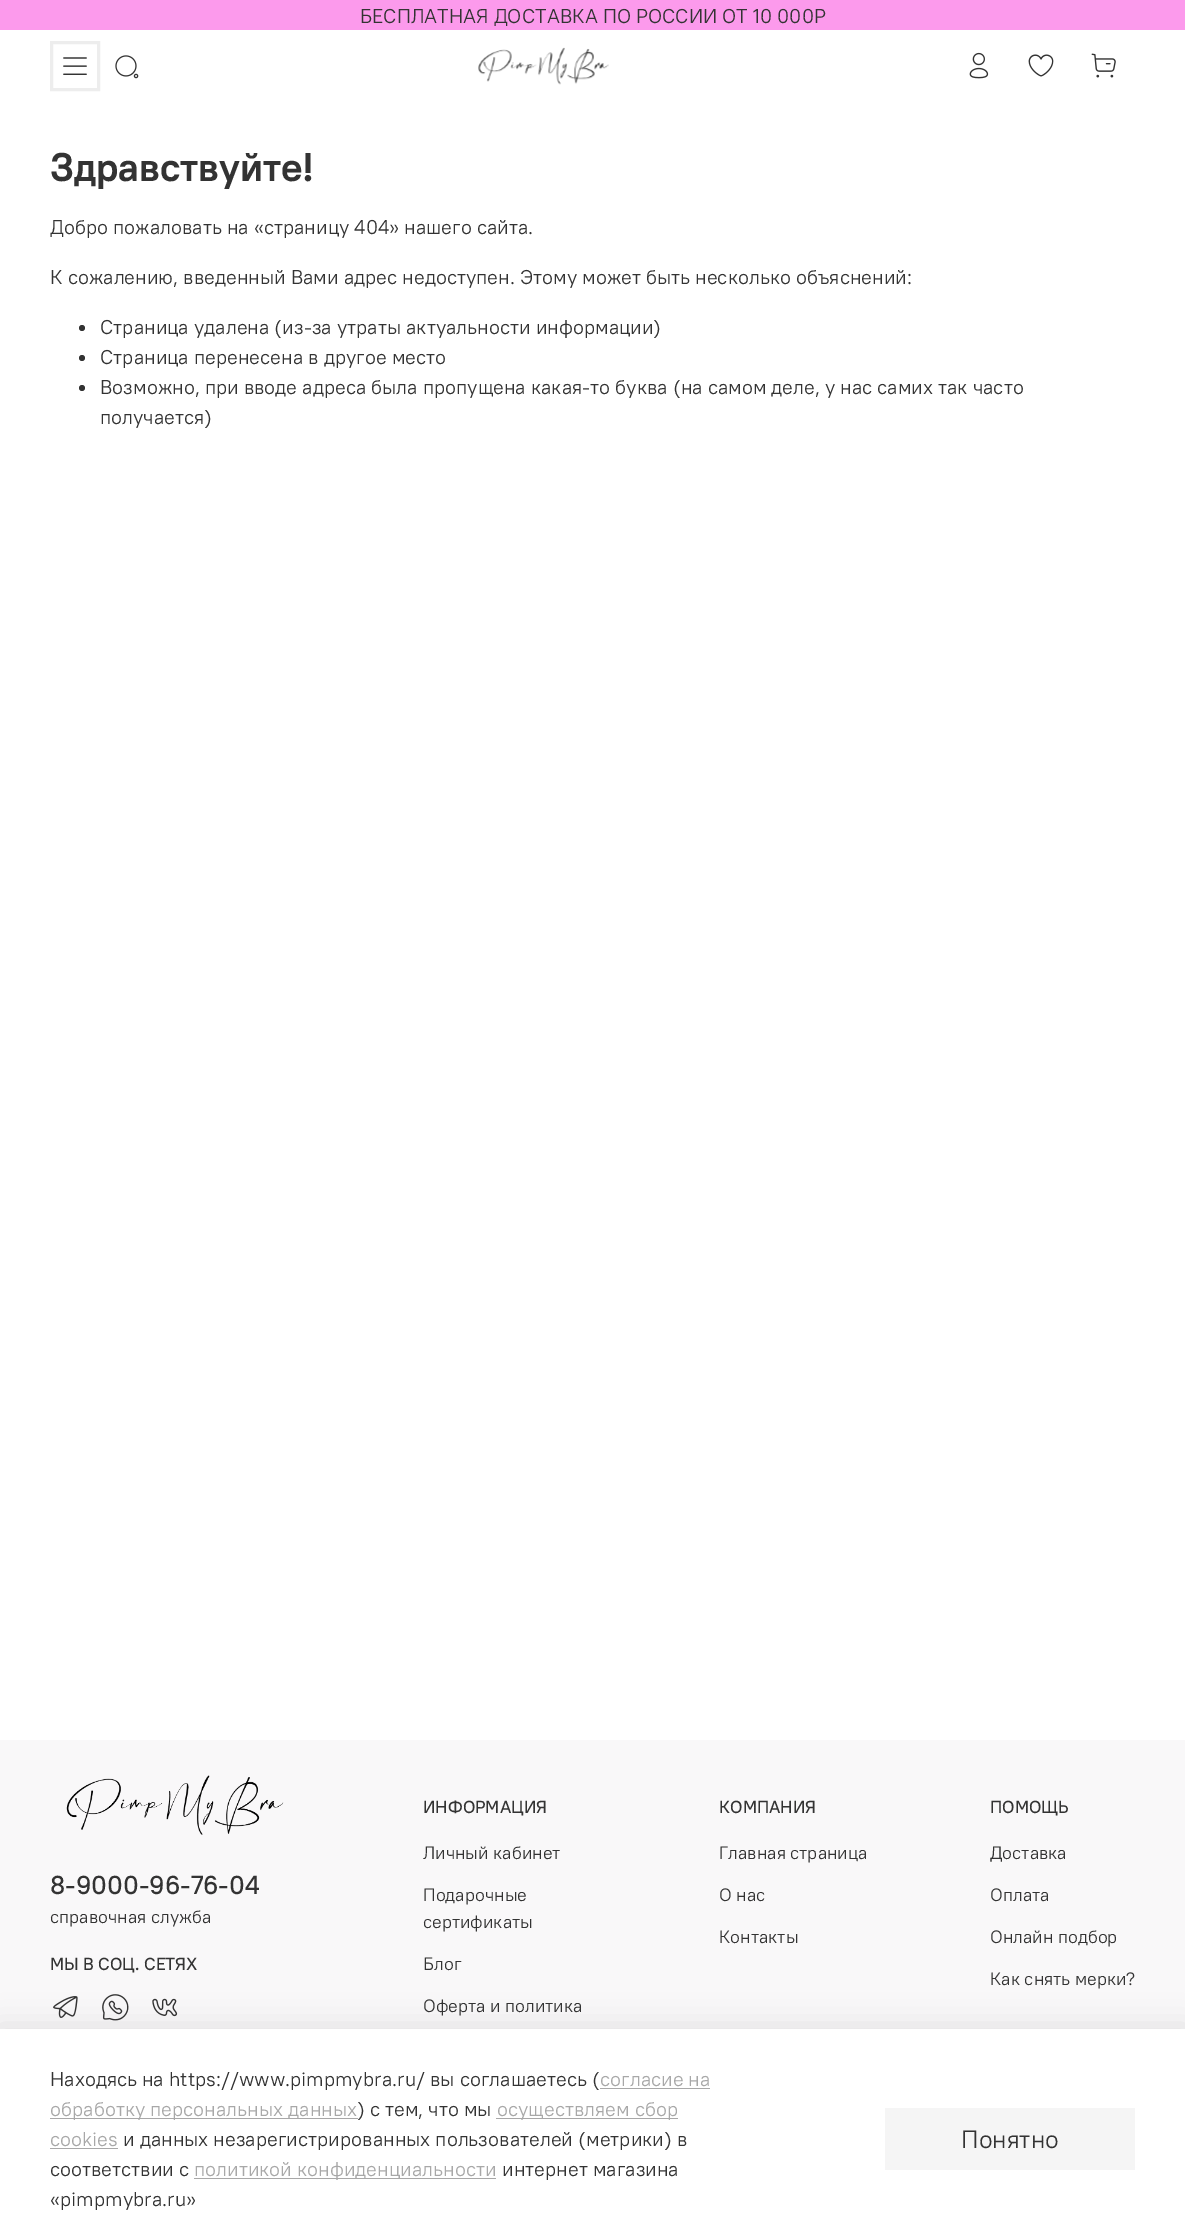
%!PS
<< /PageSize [1185 2237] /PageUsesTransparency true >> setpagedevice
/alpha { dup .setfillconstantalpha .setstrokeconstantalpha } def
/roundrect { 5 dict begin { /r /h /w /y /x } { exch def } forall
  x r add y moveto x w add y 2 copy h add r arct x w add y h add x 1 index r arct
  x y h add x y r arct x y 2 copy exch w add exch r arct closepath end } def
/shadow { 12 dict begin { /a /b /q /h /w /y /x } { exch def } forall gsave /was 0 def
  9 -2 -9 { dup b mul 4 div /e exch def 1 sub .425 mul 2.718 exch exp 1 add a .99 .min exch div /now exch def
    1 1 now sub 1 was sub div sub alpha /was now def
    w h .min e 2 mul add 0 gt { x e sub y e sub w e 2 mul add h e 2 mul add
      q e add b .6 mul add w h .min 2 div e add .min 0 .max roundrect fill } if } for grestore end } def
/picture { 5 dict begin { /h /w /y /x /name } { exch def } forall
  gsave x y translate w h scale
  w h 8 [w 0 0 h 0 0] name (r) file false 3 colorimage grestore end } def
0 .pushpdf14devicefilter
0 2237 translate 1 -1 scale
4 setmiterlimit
1 setgray
0 0 1185 2237 rectfill
0.988 0.604 0.925 setrgbcolor
0 0 1185 30 rectfill
/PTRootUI-Regular [20 0 0 -20 0 0] selectfont
0.2 setgray
360 23 moveto (БЕСПЛАТНАЯ ДОСТАВКА ПО РОССИИ ОТ 10 000Р) show
0.929 setgray
3 setlinewidth
51.5 42.5 47 47 rectstroke
(img1.rgb) 63 57 24 18 picture
(img2.rgb) 115 55 24 24 picture
(img3.rgb) 478 47 131 38 picture
(img4.rgb) 969 52 20 27 picture
(img5.rgb) 1028 54 26 23 picture
(img6.rgb) 1091 53 25 25 picture
/PTRootUI-Bold [40 0 0 -40 0 0] selectfont
0.2 setgray
50 181 moveto (Здравствуйте!) show
/PTRootUI-Regular [20 0 0 -20 0 0] selectfont
50 234 moveto (Добро пожаловать на «страницу 404» нашего сайта.) show
50 284 moveto (К сожалению, введенный Вами адрес недоступен. Этому может быть несколько объяснений:) show
newpath 82 328 3 0 360 arc closepath fill
100 334 moveto (Страница удалена \(из-за утраты актуальности информации\)) show
newpath 82 358 3 0 360 arc closepath fill
100 364 moveto (Страница перенесена в другое место) show
newpath 82 388 3 0 360 arc closepath fill
100 394 moveto (Возможно, при вводе адреса была пропущена какая-то буква \(на самом деле, у нас самих так часто) show
100 424 moveto (получается\)) show
0.976 0.973 0.976 setrgbcolor
0 1740 1185 289 rectfill
(img7.rgb) 66 1775 218 60 picture
/PTRootUI-Medium [26 0 0 -26 0 0] selectfont
0.2 setgray
50 1894 moveto (8-9000-96-76-04) show
/PTRootUI-Regular [18 0 0 -18 0 0] selectfont
50 1923 moveto (справочная служба) show
/PTRootUI-Medium [17.5 0 0 -17.5 0 0] selectfont
50 1970 moveto (МЫ В СОЦ. СЕТЯХ) show
(img8.rgb) 53 1996 25 22 picture
(img9.rgb) 102 1994 27 27 picture
(img10.rgb) 152 1998 26 19 picture
423 1813 moveto (ИНФОРМАЦИЯ) show
/PTRootUI-Regular [18 0 0 -18 0 0] selectfont
423 1859 moveto (Личный кабинет) show
423 1901 moveto (Подарочные) show
423 1928 moveto (сертификаты) show
423 1970 moveto (Блог) show
423 2012 moveto (Оферта и политика) show
/PTRootUI-Medium [17.5 0 0 -17.5 0 0] selectfont
719 1813 moveto (КОМПАНИЯ) show
/PTRootUI-Regular [18 0 0 -18 0 0] selectfont
719 1859 moveto (Главная страница) show
719 1901 moveto (О нас) show
719 1943 moveto (Контакты) show
/PTRootUI-Medium [17.5 0 0 -17.5 0 0] selectfont
990 1813 moveto (ПОМОЩЬ) show
/PTRootUI-Regular [18 0 0 -18 0 0] selectfont
990 1859 moveto (Доставка) show
990 1901 moveto (Оплата) show
990 1943 moveto (Онлайн подбор) show
990 1985 moveto (Как снять мерки?) show
0 setgray
-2 2025 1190 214 0 14.5 0.09 shadow
1 setgray
0 2029 1185 208 rectfill
/PTRootUI-Regular [20 0 0 -20 0 0] selectfont
0.2 setgray
50 2086 moveto (Находясь на https://www.pimpmybra.ru/ вы соглашаетесь \() show
0.659 setgray
600 2086 moveto (согласие на) show
600 2088 110 1 rectfill
50 2118 308 1 rectfill
50 2116 moveto (обработку персональных данных) show
0.2 setgray
357 2116 moveto (\) с тем, что мы) show
0.659 setgray
496 2118 182 1 rectfill
497 2116 moveto (осуществляем сбор) show
50 2146 moveto (cookies) show
50 2148 68 1 rectfill
0.2 setgray
123 2146 moveto (и данных незарегистрированных пользователей \(метрики\) в) show
50 2176 moveto (соответствии с) show
0.659 setgray
194 2178 302 1 rectfill
194 2176 moveto (политикой конфиденциальности) show
0.2 setgray
502 2176 moveto (интернет магазина) show
50 2206 moveto («pimpmybra.ru») show
0.961 setgray
885 2108 250 62 rectfill
/PTRootUI-Regular [25 0 0 -25 0 0] selectfont
0.2 setgray
961 2148 moveto (Понятно) show
.poppdf14devicefilter showpage
